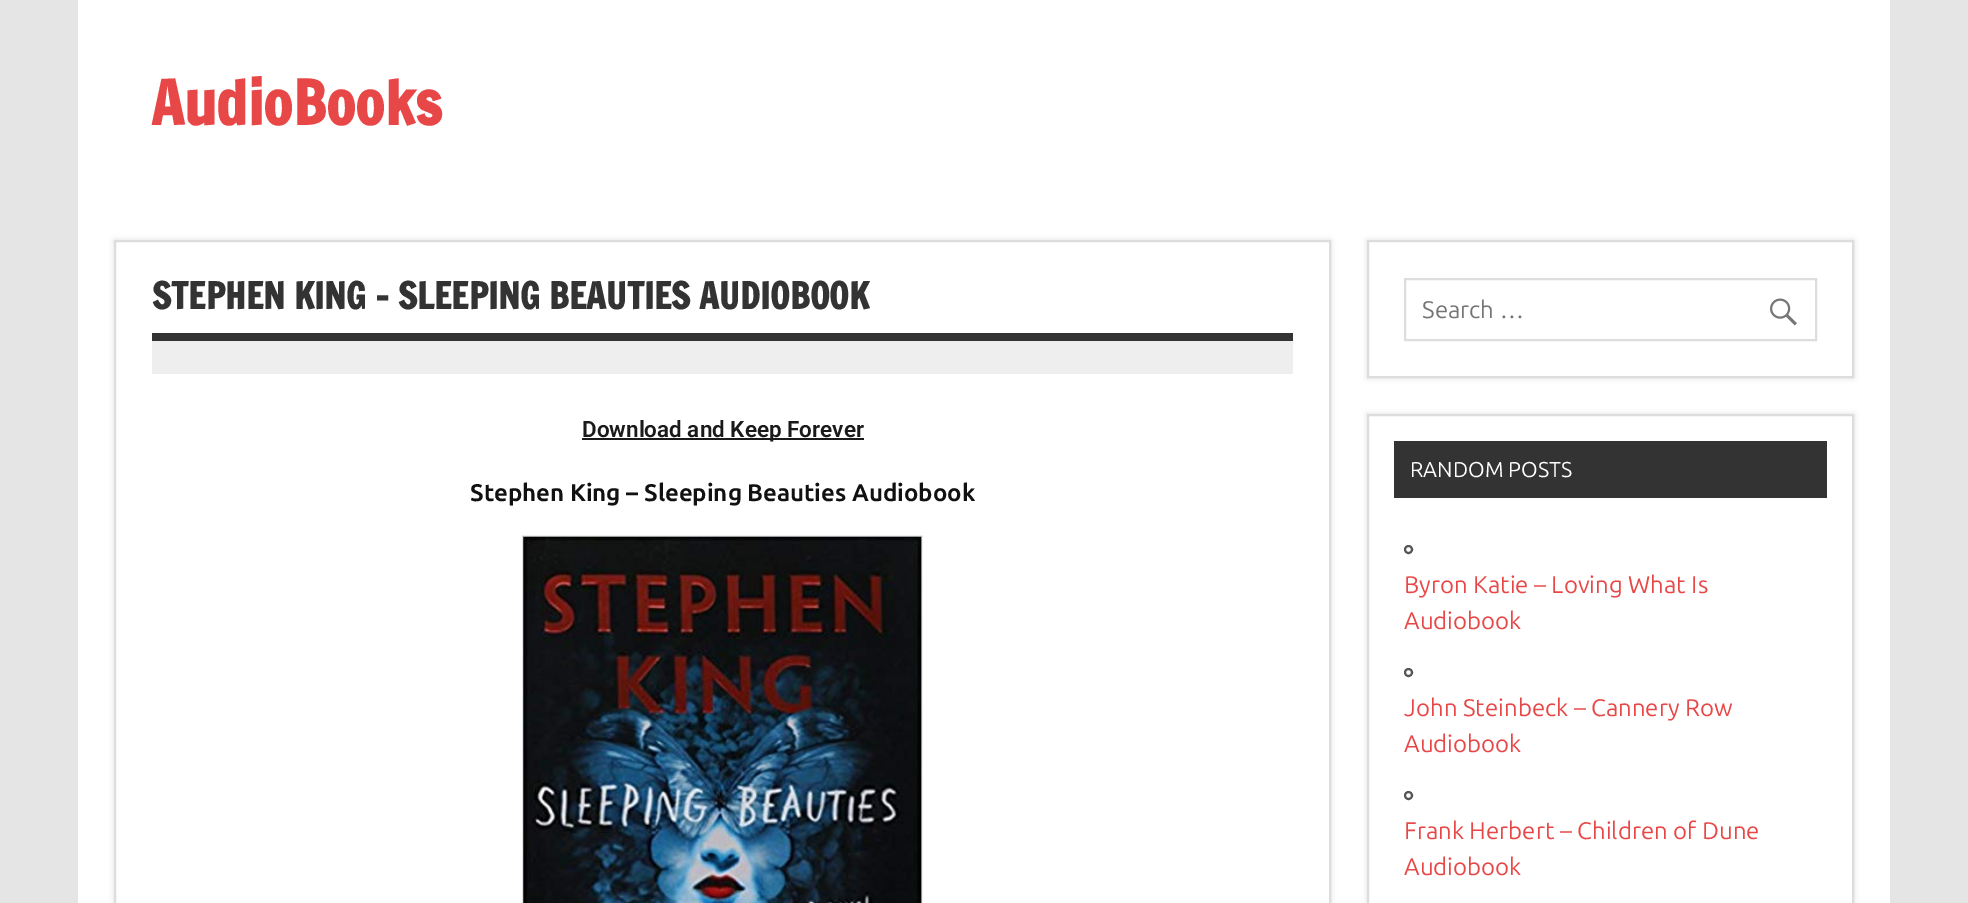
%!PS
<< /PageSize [1968 903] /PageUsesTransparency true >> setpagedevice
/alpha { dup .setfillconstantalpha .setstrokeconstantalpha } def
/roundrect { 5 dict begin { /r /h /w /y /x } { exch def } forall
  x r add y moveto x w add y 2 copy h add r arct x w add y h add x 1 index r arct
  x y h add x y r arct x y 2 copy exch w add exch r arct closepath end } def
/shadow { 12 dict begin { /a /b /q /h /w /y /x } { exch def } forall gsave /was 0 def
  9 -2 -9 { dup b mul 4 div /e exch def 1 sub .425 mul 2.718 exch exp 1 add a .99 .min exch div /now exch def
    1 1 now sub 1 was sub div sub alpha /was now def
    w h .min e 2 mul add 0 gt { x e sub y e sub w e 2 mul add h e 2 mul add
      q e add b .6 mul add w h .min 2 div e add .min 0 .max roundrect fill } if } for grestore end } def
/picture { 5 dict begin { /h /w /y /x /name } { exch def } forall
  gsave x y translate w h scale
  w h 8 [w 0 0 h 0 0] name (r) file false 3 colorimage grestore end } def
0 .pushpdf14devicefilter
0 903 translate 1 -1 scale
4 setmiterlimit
0.898 setgray
0 0 1968 903 rectfill
1 setgray
78 0 1812 903 rectfill
/FrancoisOne-Bold [60 0 0 -60 0 0] selectfont
0.91 0.278 0.278 setrgbcolor
151 125 moveto (AudioBooks) show
0.867 setgray
114 240 1217 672 0 3 1 shadow
1 setgray
newpath 115 241 moveto 1330 241 lineto 1330 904 lineto 115 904 lineto closepath gsave fill grestore
0.867 setgray
2 setlinewidth
stroke
0.2 setgray
152 333 1141 8 rectfill
/FrancoisOne-Bold [36 0 0 -36 0 0] selectfont
152 309 moveto (STEPHEN KING – SLEEPING BEAUTIES AUDIOBOOK) show
0.933 setgray
152 341 1141 33 rectfill
0.102 setgray
582 438 282 2 rectfill
/Roboto-SemiBold [22.5 0 0 -22.5 0 0] selectfont
582 437 moveto (Download and Keep Forever) show
/Ubuntu-Bold [24 0 0 -24 0 0] selectfont
0.067 setgray
470 501 moveto (Stephen King – Sleeping Beauties Audiobook) show
(img1.rgb) 522 535 401 368 picture
gsave
newpath 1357 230 moveto 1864 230 lineto 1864 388 lineto 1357 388 lineto closepath 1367 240 moveto 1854 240 lineto 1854 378 lineto 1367 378 lineto closepath eoclip newpath
0.867 setgray
1367 240 487 138 0 3 1 shadow
grestore
0.867 setgray
1368 241 485 136 rectstroke
1405 279 411 61 rectstroke
/Ubuntu-Regular [24 0 0 -24 0 0] selectfont
0.459 setgray
1422 318 moveto (Search …) show
(img2.rgb) 1770 298 27 28 picture
gsave
newpath 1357 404 moveto 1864 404 lineto 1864 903 lineto 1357 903 lineto closepath 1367 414 moveto 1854 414 lineto 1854 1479 lineto 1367 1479 lineto closepath eoclip newpath
0.867 setgray
1367 414 487 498 0 3 1 shadow
grestore
0.867 setgray
1368 415 485 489 rectstroke
0.2 setgray
1394 441 433 57 rectfill
/Ubuntu-Regular [21.5 0 0 -21.5 0 0] selectfont
1 setgray
1410 477 moveto (RANDOM POSTS) show
0.333 setgray
newpath 1408.5 549.5 3.5 0 360 arc closepath stroke
/Ubuntu-Regular [24 0 0 -24 0 0] selectfont
0.91 0.278 0.278 setrgbcolor
1404 593 moveto (Byron Katie – Loving What Is) show
1404 629 moveto (Audiobook) show
0.333 setgray
newpath 1408.5 672.5 3.5 0 360 arc closepath stroke
0.91 0.278 0.278 setrgbcolor
1404 716 moveto (John Steinbeck – Cannery Row) show
1404 752 moveto (Audiobook) show
0.333 setgray
newpath 1408.5 795.5 3.5 0 360 arc closepath stroke
0.91 0.278 0.278 setrgbcolor
1404 839 moveto (Frank Herbert – Children of Dune) show
1404 875 moveto (Audiobook) show
.poppdf14devicefilter showpage
